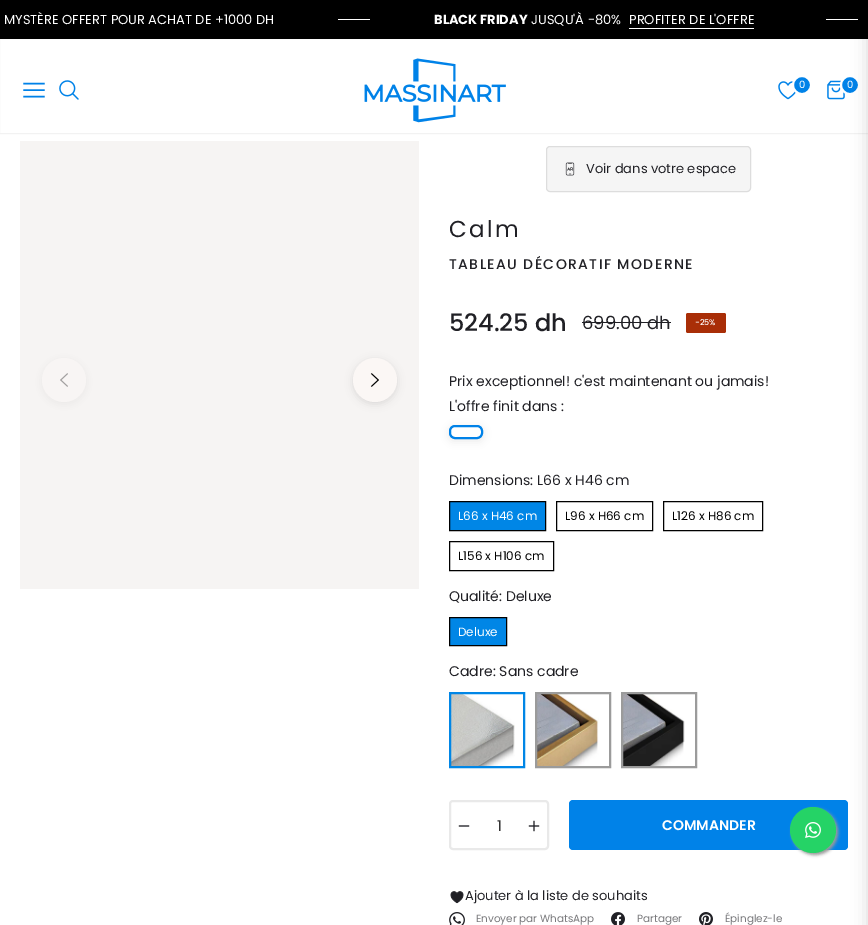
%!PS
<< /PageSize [868 925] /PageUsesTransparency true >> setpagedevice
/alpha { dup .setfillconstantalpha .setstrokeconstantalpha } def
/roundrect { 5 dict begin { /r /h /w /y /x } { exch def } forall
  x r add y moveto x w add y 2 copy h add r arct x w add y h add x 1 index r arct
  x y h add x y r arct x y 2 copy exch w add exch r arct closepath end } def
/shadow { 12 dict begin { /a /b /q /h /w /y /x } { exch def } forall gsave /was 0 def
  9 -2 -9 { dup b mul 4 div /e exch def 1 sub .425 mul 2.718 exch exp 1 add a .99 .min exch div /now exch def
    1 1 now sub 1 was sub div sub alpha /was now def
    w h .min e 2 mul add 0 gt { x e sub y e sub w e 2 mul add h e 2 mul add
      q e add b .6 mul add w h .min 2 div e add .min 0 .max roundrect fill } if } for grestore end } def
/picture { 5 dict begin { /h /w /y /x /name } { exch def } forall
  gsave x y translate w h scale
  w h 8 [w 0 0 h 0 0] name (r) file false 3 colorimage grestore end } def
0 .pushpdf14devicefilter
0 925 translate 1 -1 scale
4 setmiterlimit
1 setgray
0 0 868 925 rectfill
0 setgray
0 0 868 39 rectfill
/Poppins-Regular [13 0 0 -13 0 0] selectfont
1 setgray
4 24 moveto (MYSTÈRE OFFERT POUR ACHAT DE +1000 DH) show
338 19 32 1 rectfill
/Poppins-Bold [13 0 0 -13 0 0] selectfont
434 24 moveto (BLACK FRIDAY) show
/Poppins-Regular [13 0 0 -13 0 0] selectfont
531 24 moveto (JUSQU'À -80%) show
629 24 moveto (PROFITER DE L'OFFRE) show
629 28 125 1 rectfill
826 19 32 1 rectfill
0.05 alpha
0 setgray
-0.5 38.5 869 95 rectstroke
1 alpha
0 0.51 0.91 setrgbcolor
1.4 setlinewidth
2 setlinecap
newpath 24 96.5 moveto 44 96.5 lineto 24 90 moveto 44 90 lineto 24 83.5 moveto 44 83.5 lineto stroke
(img1.rgb) 59 80 20 20 picture
(img2.rgb) 364 58 142 65 picture
(img3.rgb) 778 81 18 19 picture
newpath 802 85 9 0 360 arc closepath gsave fill grestore
1 setgray
2 setlinewidth
0 setlinecap
stroke
/Poppins-Regular [10 0 0 -10 0 0] selectfont
799 88 moveto (0) show
(img4.rgb) 827 80 18 20 picture
0 0.51 0.91 setrgbcolor
newpath 850 85 9 0 360 arc closepath gsave fill grestore
1 setgray
stroke
0 0.51 0.91 setrgbcolor
569 800 279 50 4 roundrect fill
0 setgray
868 8 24 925 0 8 0.15 shadow
1 setgray
847 88 moveto (0) show
0.965 0.957 0.953 setrgbcolor
20 141 399 448 rectfill
0.702 0.694 0.694 setrgbcolor
42 360 44 44 22 4 0.15 shadow
0.973 0.961 0.957 setrgbcolor
newpath 64 380 22 0 360 arc closepath fill
(img5.rgb) 60 373 8 14 picture
0.212 setgray
353 360 44 44 22 4 0.15 shadow
0.984 0.969 0.961 setrgbcolor
newpath 375 380 22 0 360 arc closepath fill
(img6.rgb) 370 373 9 14 picture
0.961 setgray
546.5 146.5 204 45 3.5 roundrect gsave fill grestore
0.867 setgray
1 setlinewidth
stroke
(img7.rgb) 565 162 10 14 picture
/Poppins-Regular [13 0 0 -13 0 0] selectfont
0.125 0.125 0.145 setrgbcolor
586 173 moveto (Voir dans votre espace) show
/Poppins-Regular [23 0 0 -23 0 0] selectfont
449 237 moveto 2.5 0 (Calm) ashow
/Poppins-Medium [14 0 0 -14 0 0] selectfont
449 269 moveto 1.4 0 (TABLEAU DÉCORATIF MODERNE) ashow
/Poppins-Medium [24 0 0 -24 0 0] selectfont
449 331 moveto (524.25 dh) show
/Poppins-Regular [18 0 0 -18 0 0] selectfont
582 329 moveto (699.00 dh) show
582 322 89 1 rectfill
0.663 0.18 0.027 setrgbcolor
686 313 40 20 2 roundrect fill
/Poppins-Medium [8 0 0 -8 0 0] selectfont
1 setgray
695 325 moveto (-25%) show
/Poppins-Regular [14 0 0 -14 0 0] selectfont
0.125 0.125 0.145 setrgbcolor
449 386 moveto (Prix exceptionnel! c'est maintenant ou jamais!) show
449 411 moveto (L'offre finit dans :) show
0 setgray
449 427 34 14 6 4 0.08 shadow
1 setgray
450 426 32 12 5 roundrect gsave fill grestore
0 0.51 0.91 setrgbcolor
2 setlinewidth
stroke
0.125 0.125 0.145 setrgbcolor
449 485 moveto (Dimensions: L66 x H46 cm) show
0 0.525 0.902 setrgbcolor
newpath 449.5 501.5 moveto 545.5 501.5 lineto 545.5 530.5 lineto 449.5 530.5 lineto closepath gsave fill grestore
0 setgray
1 setlinewidth
stroke
/Poppins-Regular [12 0 0 -12 0 0] selectfont
1 setgray
458 520 moveto (L66 x H46 cm) show
0 setgray
556.5 501.5 96 29 rectstroke
565 520 moveto (L96 x H66 cm) show
663.5 501.5 99 29 rectstroke
672 520 moveto (L126 x H86 cm) show
449.5 541.5 104 29 rectstroke
458 560 moveto (L156 x H106 cm) show
/Poppins-Regular [14 0 0 -14 0 0] selectfont
0.125 0.125 0.145 setrgbcolor
449 601 moveto (Qualité: Deluxe) show
0 0.525 0.902 setrgbcolor
newpath 449.5 617.5 moveto 506.5 617.5 lineto 506.5 645.5 lineto 449.5 645.5 lineto closepath gsave fill grestore
0 setgray
stroke
/Poppins-Regular [12 0 0 -12 0 0] selectfont
1 setgray
458 636 moveto (Deluxe) show
/Poppins-Regular [14 0 0 -14 0 0] selectfont
0.125 0.125 0.145 setrgbcolor
449 676 moveto (Cadre: Sans cadre) show
(img8.rgb) 451 694 64 72 picture
0 0.525 0.902 setrgbcolor
2 setlinewidth
450 693 74 74 rectstroke
(img9.rgb) 537 694 62 72 picture
0.608 setgray
536 693 74 74 rectstroke
(img10.rgb) 623 694 62 72 picture
622 693 74 74 rectstroke
0.914 setgray
450 801 98 48 3 roundrect stroke
(img11.rgb) 458 825 12 2 picture
/Poppins-Regular [15 0 0 -15 0 0] selectfont
0.2 setgray
497 831 moveto (1) show
(img12.rgb) 528 820 12 12 picture
/Poppins-SemiBold [14 0 0 -14 0 0] selectfont
1 setgray
662 830 moveto (COMMANDER) show
(img13.rgb) 450 891 14 13 picture
/Poppins-Regular [13 0 0 -13 0 0] selectfont
0.125 0.125 0.145 setrgbcolor
465 900 moveto (Ajouter à la liste de souhaits) show
(img14.rgb) 449 912 16 13 picture
/Poppins-Regular [10.4 0 0 -10.4 0 0] selectfont
0.475 0.475 0.486 setrgbcolor
476 922 moveto (Envoyer par WhatsApp) show
(img15.rgb) 611 912 14 13 picture
637 922 moveto (Partager) show
(img16.rgb) 699 912 14 13 picture
725 922 moveto (Épinglez-le) show
0.6 setgray
792 809 46 46 23 1.5 1 shadow
0.145 0.827 0.4 setrgbcolor
newpath 813 830 23 0 360 arc closepath fill
(img17.rgb) 805 822 16 16 picture
.poppdf14devicefilter showpage
